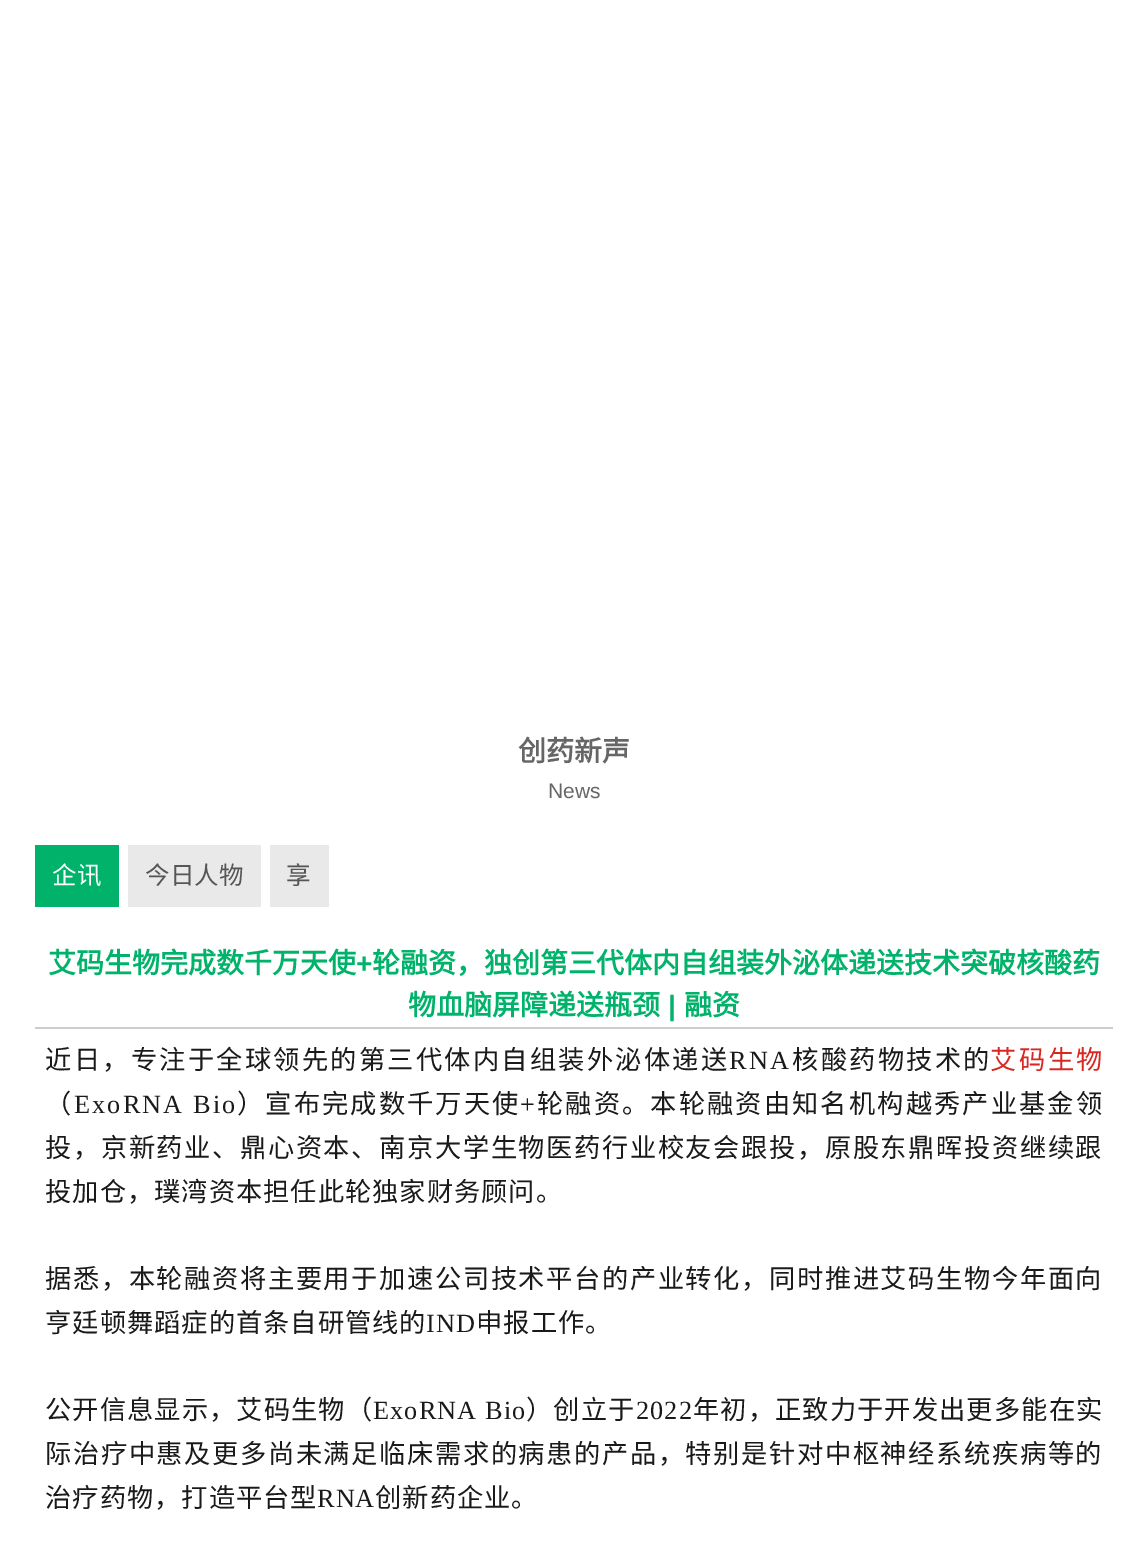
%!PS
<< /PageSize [1148 1561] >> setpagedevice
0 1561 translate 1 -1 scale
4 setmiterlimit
1 setgray
0 0 1148 1561 rectfill
/NotoSansCJKSC-Bold [28 0 0 -28 0 0] selectfont
0.4 setgray
518 761 moveto (创药新声) show
/LiberationSans-Regular [21 0 0 -21 0 0] selectfont
548 798 moveto (News) show
0.004 0.702 0.416 setrgbcolor
35 845 84 62 rectfill
/NotoSansCJKSC-Regular [24.5 0 0 -24.5 0 0] selectfont
1 setgray
52 884 moveto (企讯) show
0.914 setgray
128 845 133 62 rectfill
0.337 setgray
145 884 moveto (今日人物) show
0.914 setgray
270 845 59 62 rectfill
0.337 setgray
286 884 moveto (享) show
0.804 setgray
35 1027 1078 2 rectfill
/NotoSansCJKSC-Bold [28 0 0 -28 0 0] selectfont
0.004 0.702 0.416 setrgbcolor
48 973 moveto (艾码生物完成数千万天使) show
/LiberationSans-Bold [28 0 0 -28 0 0] selectfont
356 973 moveto (+) show
/NotoSansCJKSC-Bold [28 0 0 -28 0 0] selectfont
372 973 moveto (轮融资，独创第三代体内自组装外泌体递送技术突破核酸药) show
408 1015 moveto (物血脑屏障递送瓶颈) show
/LiberationSans-Bold [28 0 0 -28 0 0] selectfont
668 1015 moveto (|) show
/NotoSansCJKSC-Bold [28 0 0 -28 0 0] selectfont
684 1015 moveto (融资) show
/NotoSansCJKSC-Regular [26.25 0 0 -26.25 0 0] selectfont
0.102 setgray
45 1069 moveto 2.25 0 (近日，专注于全球领先的第三代体内自组装外泌体递送) ashow
/LiberationSerif-Regular [26.25 0 0 -26.25 0 0] selectfont
729 1069 moveto 2.25 0 (RNA) ashow
/NotoSansCJKSC-Regular [26.25 0 0 -26.25 0 0] selectfont
792 1069 moveto 2.25 0 (核酸药物技术的) ashow
0.847 0.157 0.129 setrgbcolor
990 1069 moveto 2.5 0 (艾码生物) ashow
0.102 setgray
45 1113 moveto 2.1 0 (（) ashow
/LiberationSerif-Regular [26.25 0 0 -26.25 0 0] selectfont
74 1113 moveto 2.1 0 (ExoRNA Bio) ashow
/NotoSansCJKSC-Regular [26.25 0 0 -26.25 0 0] selectfont
237 1113 moveto 2.1 0 (）宣布完成数千万天使) ashow
/LiberationSerif-Regular [26.25 0 0 -26.25 0 0] selectfont
520 1113 moveto 2.1 0 (+) ashow
/NotoSansCJKSC-Regular [26.25 0 0 -26.25 0 0] selectfont
537 1113 moveto 2.1 0 (轮融资。本轮融资由知名机构越秀产业基金领) ashow
45 1157 moveto 1.6 0 (投，京新药业、鼎心资本、南京大学生物医药行业校友会跟投，原股东鼎晖投资继续跟) ashow
45 1201 moveto 1 0 (投加仓，璞湾资本担任此轮独家财务顾问。) ashow
45 1288 moveto 1.6 0 (据悉，本轮融资将主要用于加速公司技术平台的产业转化，同时推进艾码生物今年面向) ashow
45 1332 moveto 1 0 (亨廷顿舞蹈症的首条自研管线的) ashow
/LiberationSerif-Regular [26.25 0 0 -26.25 0 0] selectfont
426 1332 moveto 1 0 (IND) ashow
/NotoSansCJKSC-Regular [26.25 0 0 -26.25 0 0] selectfont
476 1332 moveto 1 0 (申报工作。) ashow
45 1419 moveto 1.1 0 (公开信息显示，艾码生物（) ashow
/LiberationSerif-Regular [26.25 0 0 -26.25 0 0] selectfont
373 1419 moveto 1.1 0 (ExoRNA Bio) ashow
/NotoSansCJKSC-Regular [26.25 0 0 -26.25 0 0] selectfont
526 1419 moveto 1.1 0 (）创立于) ashow
/LiberationSerif-Regular [26.25 0 0 -26.25 0 0] selectfont
636 1419 moveto 1.1 0 (2022) ashow
/NotoSansCJKSC-Regular [26.25 0 0 -26.25 0 0] selectfont
693 1419 moveto 1.1 0 (年初，正致力于开发出更多能在实) ashow
45 1463 moveto 1.6 0 (际治疗中惠及更多尚未满足临床需求的病患的产品，特别是针对中枢神经系统疾病等的) ashow
45 1507 moveto 1 0 (治疗药物，打造平台型) ashow
/LiberationSerif-Regular [26.25 0 0 -26.25 0 0] selectfont
317 1507 moveto 1 0 (RNA) ashow
/NotoSansCJKSC-Regular [26.25 0 0 -26.25 0 0] selectfont
375 1507 moveto 1 0 (创新药企业。) ashow
showpage
